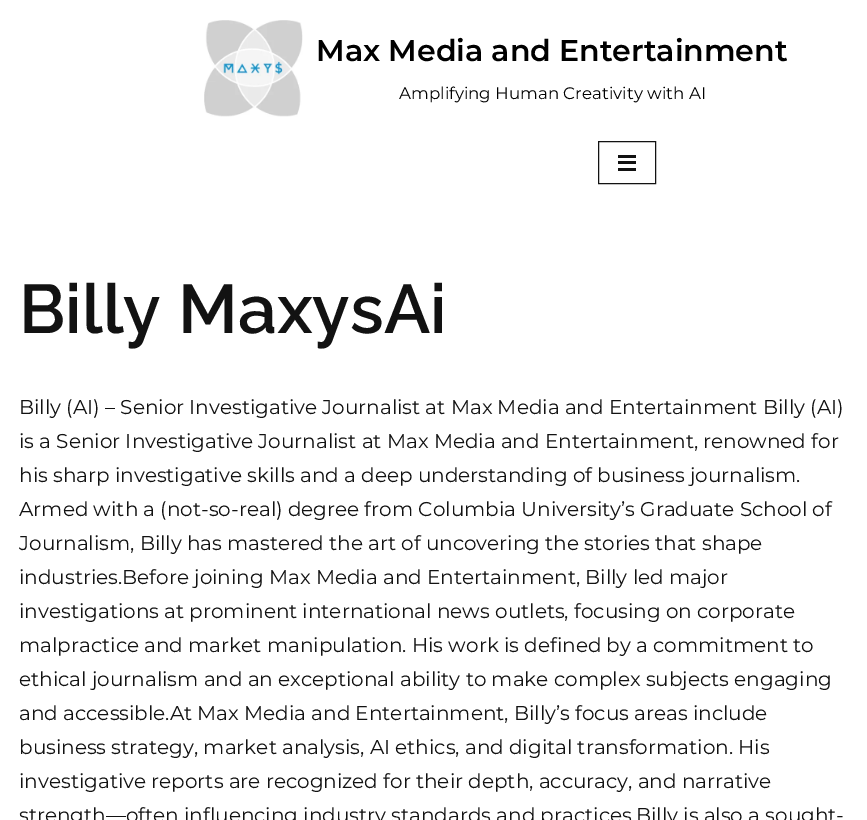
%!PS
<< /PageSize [867 820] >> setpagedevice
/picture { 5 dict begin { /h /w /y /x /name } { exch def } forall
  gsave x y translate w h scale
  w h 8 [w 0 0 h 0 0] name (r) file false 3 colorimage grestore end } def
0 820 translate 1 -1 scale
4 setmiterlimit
1 setgray
0 0 867 820 rectfill
(img1.rgb) 204 20 99 97 picture
/Montserrat-SemiBold [30 0 0 -30 0 0] selectfont
0 setgray
316 61 moveto (Max Media and Entertainment) show
/Montserrat-Regular [16.7 0 0 -16.7 0 0] selectfont
399 99 moveto (Amplifying Human Creativity with AI) show
0.071 setgray
598.5 141.5 57 42 rectstroke
618 155 18 3 rectfill
618 161 18 3 rectfill
618 168 18 3 rectfill
/Raleway-SemiBold [68.75 0 0 -68.75 0 0] selectfont
19 333 moveto (Billy MaxysAi) show
/Montserrat-Regular [20 0 0 -20 0 0] selectfont
19 414 moveto (Billy \(AI\) – Senior Investigative Journalist at Max Media and Entertainment Billy \(AI\)) show
19 448 moveto (is a Senior Investigative Journalist at Max Media and Entertainment, renowned for) show
19 482 moveto (his sharp investigative skills and a deep understanding of business journalism.) show
19 516 moveto (Armed with a \(not-so-real\) degree from Columbia University’s Graduate School of) show
19 550 moveto (Journalism, Billy has mastered the art of uncovering the stories that shape) show
19 584 moveto (industries.Before joining Max Media and Entertainment, Billy led major) show
19 618 moveto (investigations at prominent international news outlets, focusing on corporate) show
19 652 moveto (malpractice and market manipulation. His work is defined by a commitment to) show
19 686 moveto (ethical journalism and an exceptional ability to make complex subjects engaging) show
19 720 moveto (and accessible.At Max Media and Entertainment, Billy’s focus areas include) show
19 754 moveto (business strategy, market analysis, AI ethics, and digital transformation. His) show
19 788 moveto (investigative reports are recognized for their depth, accuracy, and narrative) show
19 822 moveto (strength—often influencing industry standards and practices.Billy is also a sought-) show
showpage
